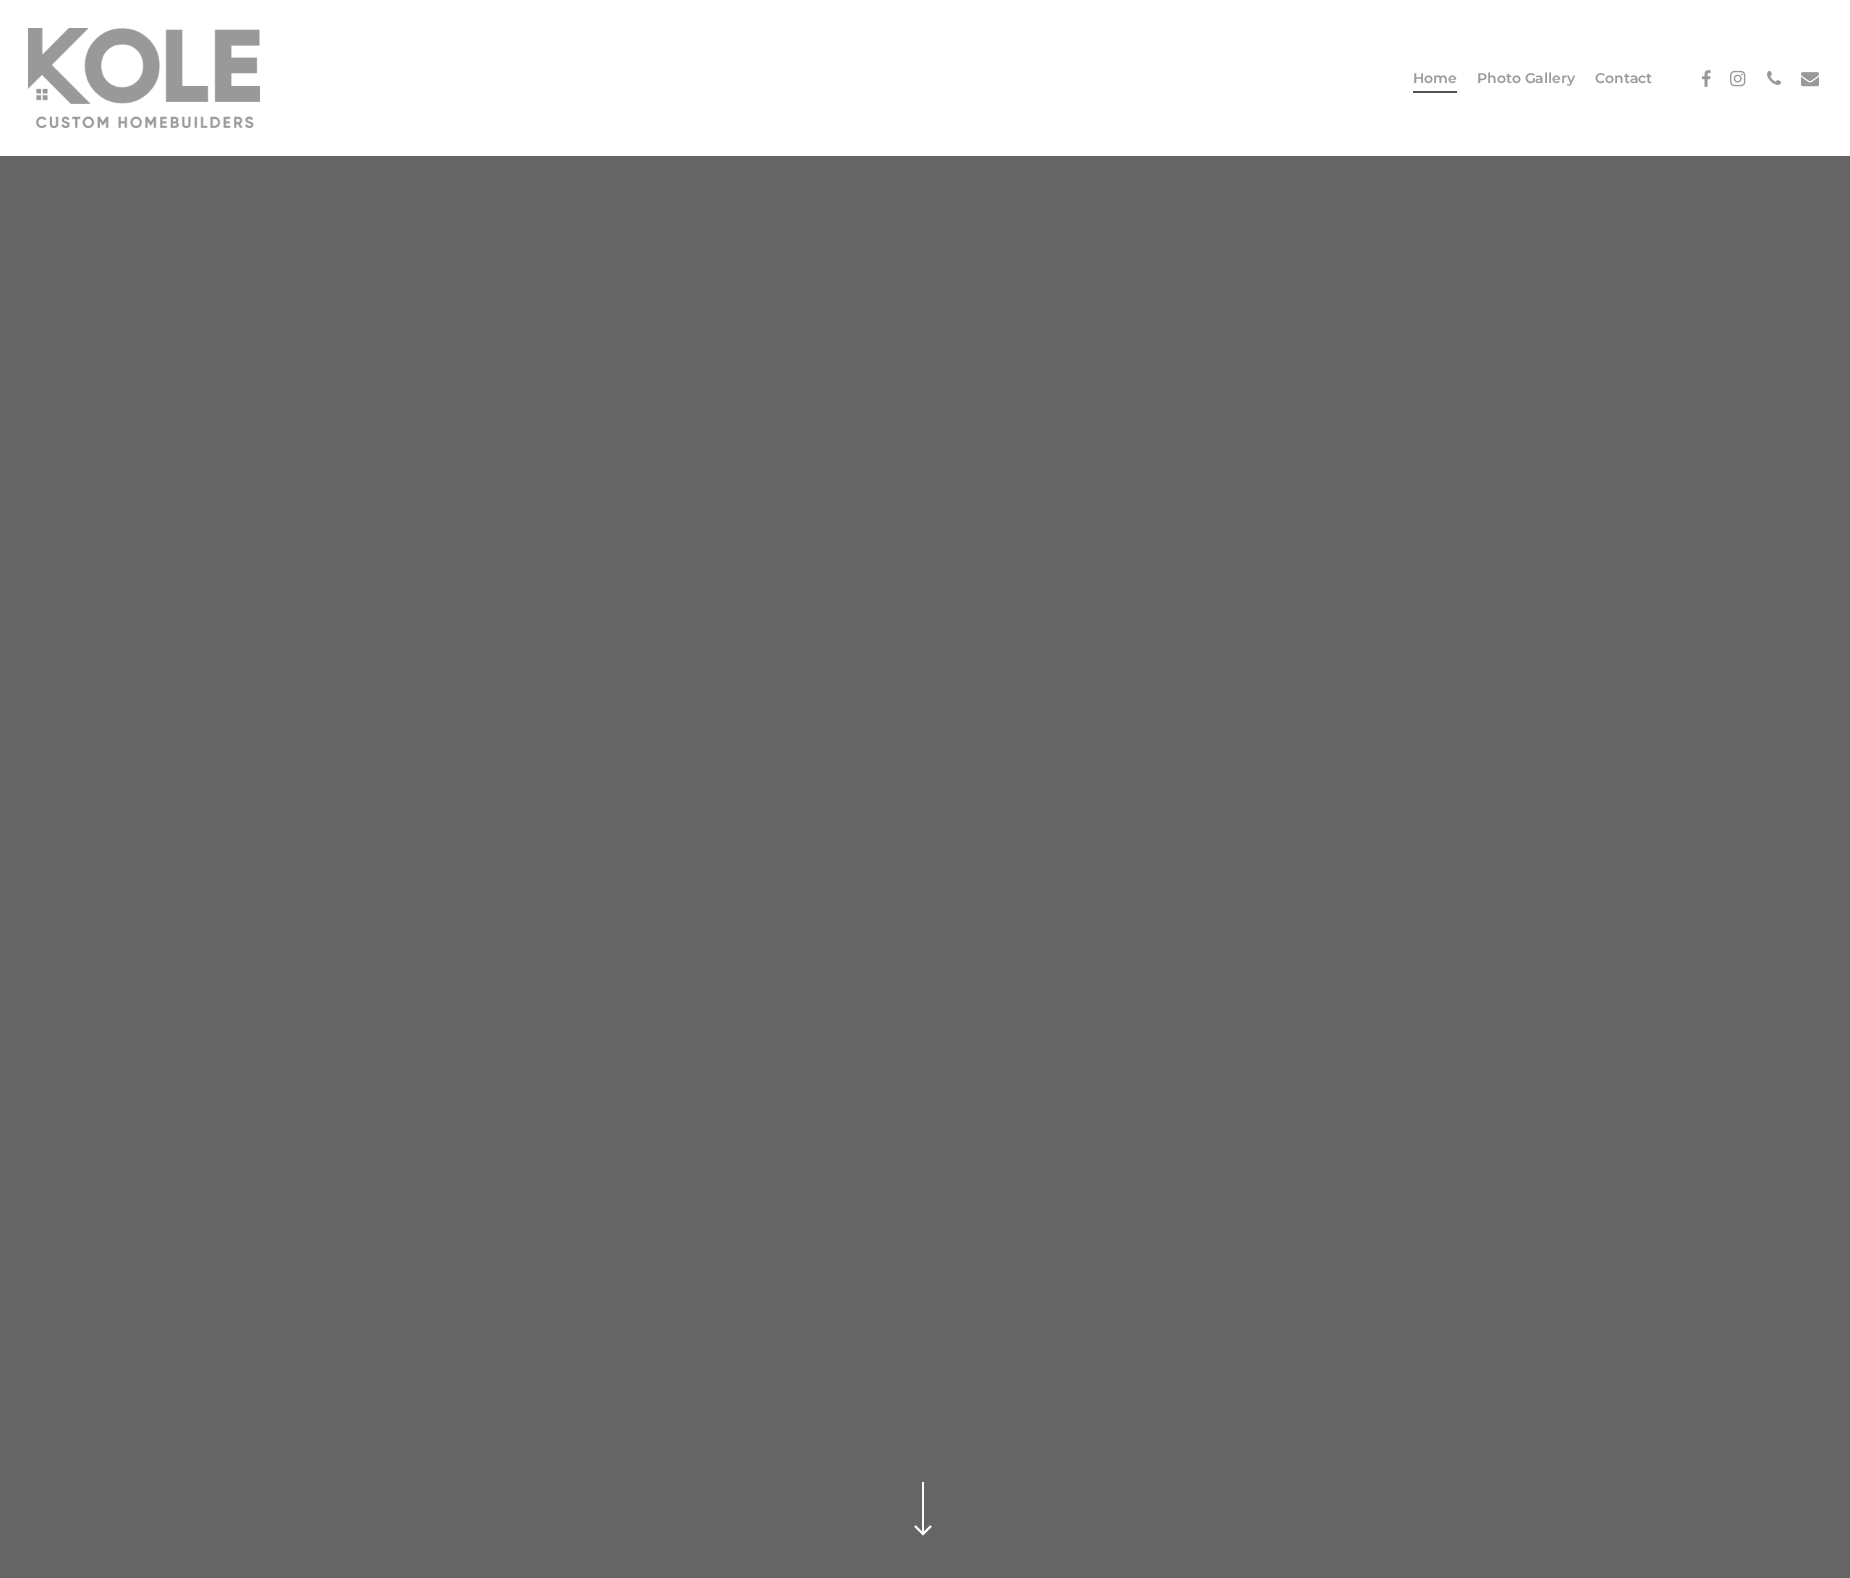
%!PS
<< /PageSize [1850 1578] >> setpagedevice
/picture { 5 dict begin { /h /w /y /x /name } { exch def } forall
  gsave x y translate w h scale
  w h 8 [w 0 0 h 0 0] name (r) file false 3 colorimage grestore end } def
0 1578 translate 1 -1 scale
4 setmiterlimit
1 setgray
0 0 1850 1578 rectfill
(img1.rgb) 28 28 232 100 picture
/Montserrat-SemiBold [14 0 0 -14 0 0] selectfont
0.6 setgray
1413 83 moveto (Home) show
0.318 setgray
1413 91 44 2 rectfill
0.6 setgray
1477 83 moveto (Photo Gallery) show
1595 83 moveto (Contact) show
(img2.rgb) 1701 70 10 17 picture
(img3.rgb) 1730 70 16 17 picture
(img4.rgb) 1767 70 15 15 picture
(img5.rgb) 1801 72 18 15 picture
0.396 setgray
0 156 1850 1422 rectfill
1 setgray
922 1482 2 51 rectfill
2 setlinewidth
newpath 915 1526 moveto 923 1534 lineto 931 1526 lineto stroke
showpage
